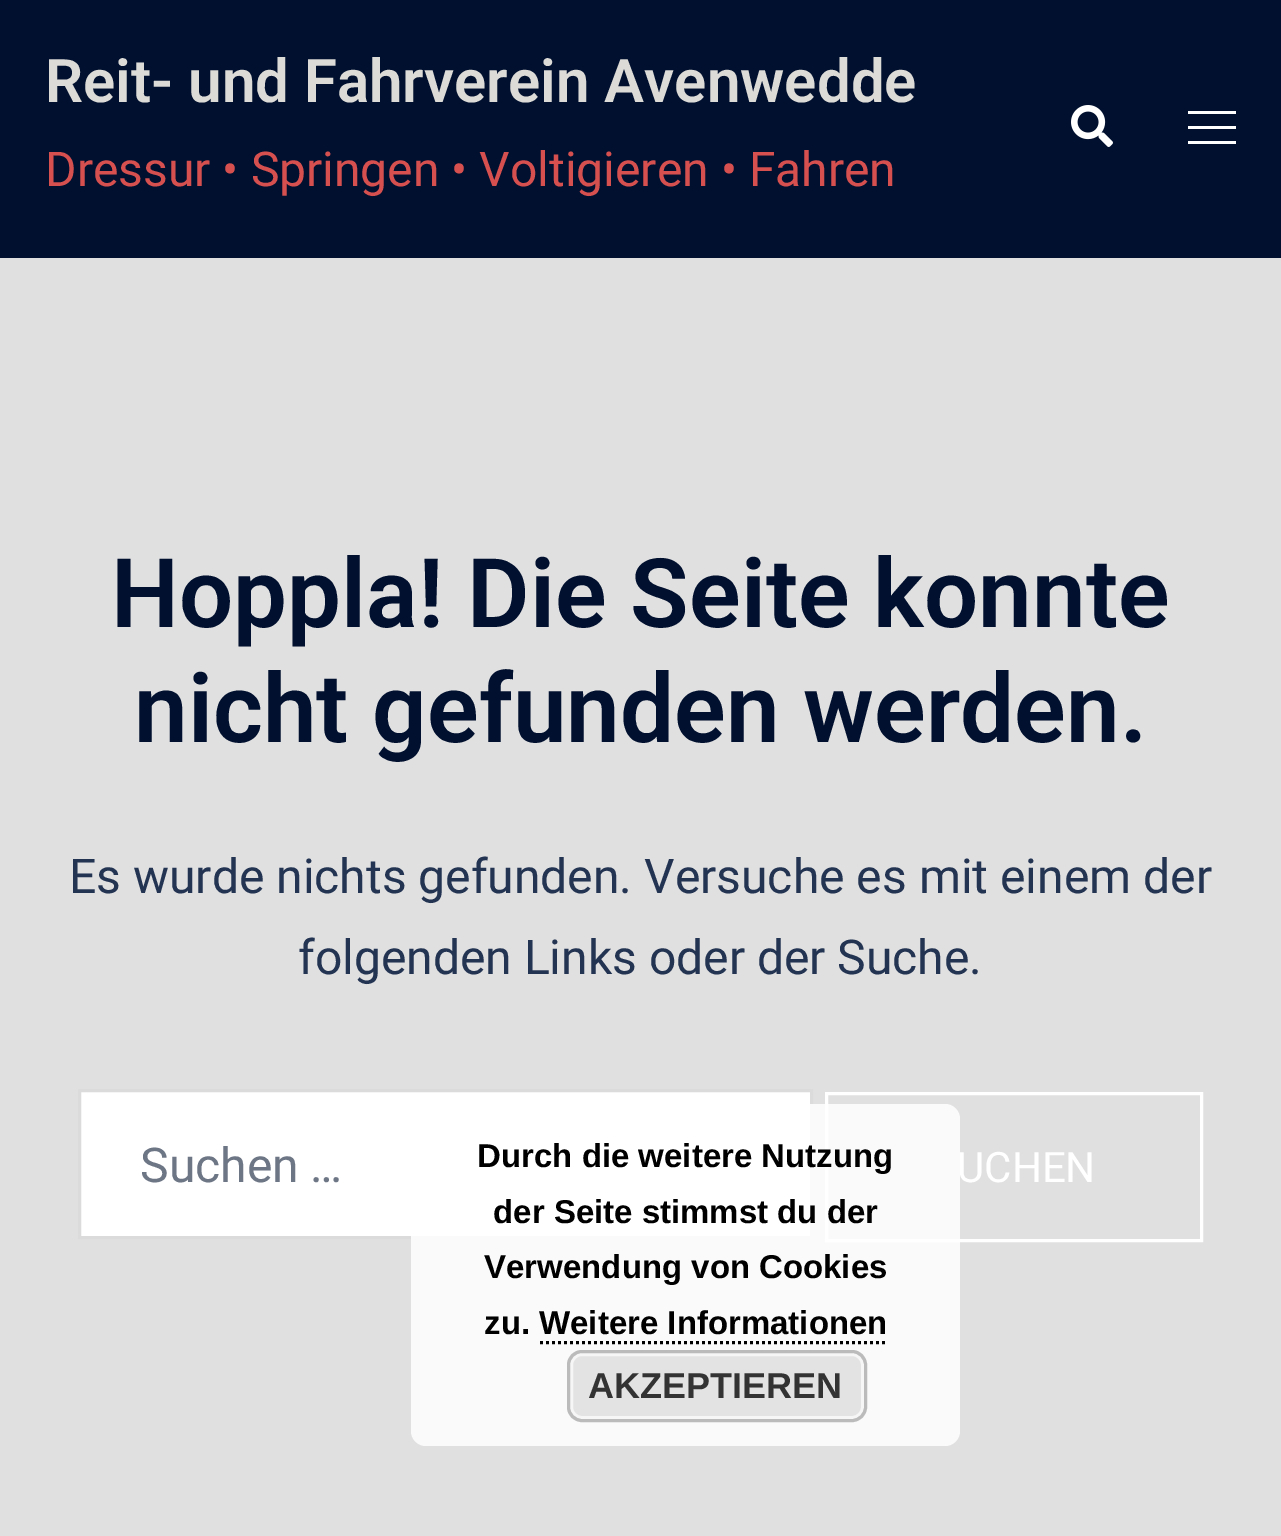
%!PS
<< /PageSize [1281 1536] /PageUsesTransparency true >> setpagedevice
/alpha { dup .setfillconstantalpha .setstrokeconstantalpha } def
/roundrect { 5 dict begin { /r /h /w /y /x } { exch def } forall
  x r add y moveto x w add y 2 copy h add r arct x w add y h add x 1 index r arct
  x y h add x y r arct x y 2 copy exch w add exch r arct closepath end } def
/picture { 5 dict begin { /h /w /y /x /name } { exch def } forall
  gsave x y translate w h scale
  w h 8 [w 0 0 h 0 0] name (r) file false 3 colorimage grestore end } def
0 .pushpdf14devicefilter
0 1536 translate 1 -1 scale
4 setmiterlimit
0.878 setgray
0 0 1281 1536 rectfill
0 0.063 0.18 setrgbcolor
0 0 1281 258 rectfill
/Roboto-SemiBold [60 0 0 -60 0 0] selectfont
0.867 0.859 0.843 setrgbcolor
45 102 moveto (Reit- und Fahrverein Avenwedde) show
/Roboto-Regular [48 0 0 -48 0 0] selectfont
0.839 0.314 0.314 setrgbcolor
45 186 moveto (Dressur • Springen • Voltigieren • Fahren) show
(img1.rgb) 1071 105 42 42 picture
1 setgray
1188 111 48 3 rectfill
1188 126 48 3 rectfill
1188 141 48 3 rectfill
/Roboto-SemiBold [96 0 0 -96 0 0] selectfont
0 0.063 0.18 setrgbcolor
111 627 moveto (Hoppla! Die Seite konnte) show
134 742 moveto (nicht gefunden werden.) show
/Roboto-Regular [48 0 0 -48 0 0] selectfont
0.137 0.204 0.322 setrgbcolor
69 893 moveto (Es wurde nichts gefunden. Versuche es mit einem der) show
298 974 moveto (folgenden Links oder der Suche.) show
1 setgray
newpath 79.5 1090.5 moveto 811.5 1090.5 lineto 811.5 1237.5 lineto 79.5 1237.5 lineto closepath gsave fill grestore
0.859 setgray
3 setlinewidth
stroke
0.427 0.463 0.522 setrgbcolor
140 1182 moveto (Suchen …) show
1 setgray
826.5 1093.5 375 147 rectstroke
/Roboto-Regular [42 0 0 -42 0 0] selectfont
957 1182 moveto (UCHEN) show
0.85 alpha
411 1104 549 342 15 roundrect fill
/LiberationSans-Bold [33 0 0 -33 0 0] selectfont
1 alpha
0 setgray
477 1167 moveto (Durch die weitere Nutzung) show
493 1223 moveto (der Seite stimmst du der) show
484 1278 moveto (Verwendung von Cookies) show
484 1334 moveto (zu. Weitere Informationen) show
[3 3] 0 setdash
newpath 540 1342.5 moveto 888 1342.5 lineto stroke
0.89 setgray
567 1350 300 72 15 roundrect fill
0.965 setgray
[] 0 setdash
571.5 1354.5 291 63 10.5 roundrect stroke
0.733 setgray
568.5 1351.5 297 69 13.5 roundrect stroke
/LiberationSans-Bold [36 0 0 -36 0 0] selectfont
0.2 setgray
588 1398 moveto (AKZEPTIEREN) show
.poppdf14devicefilter showpage
